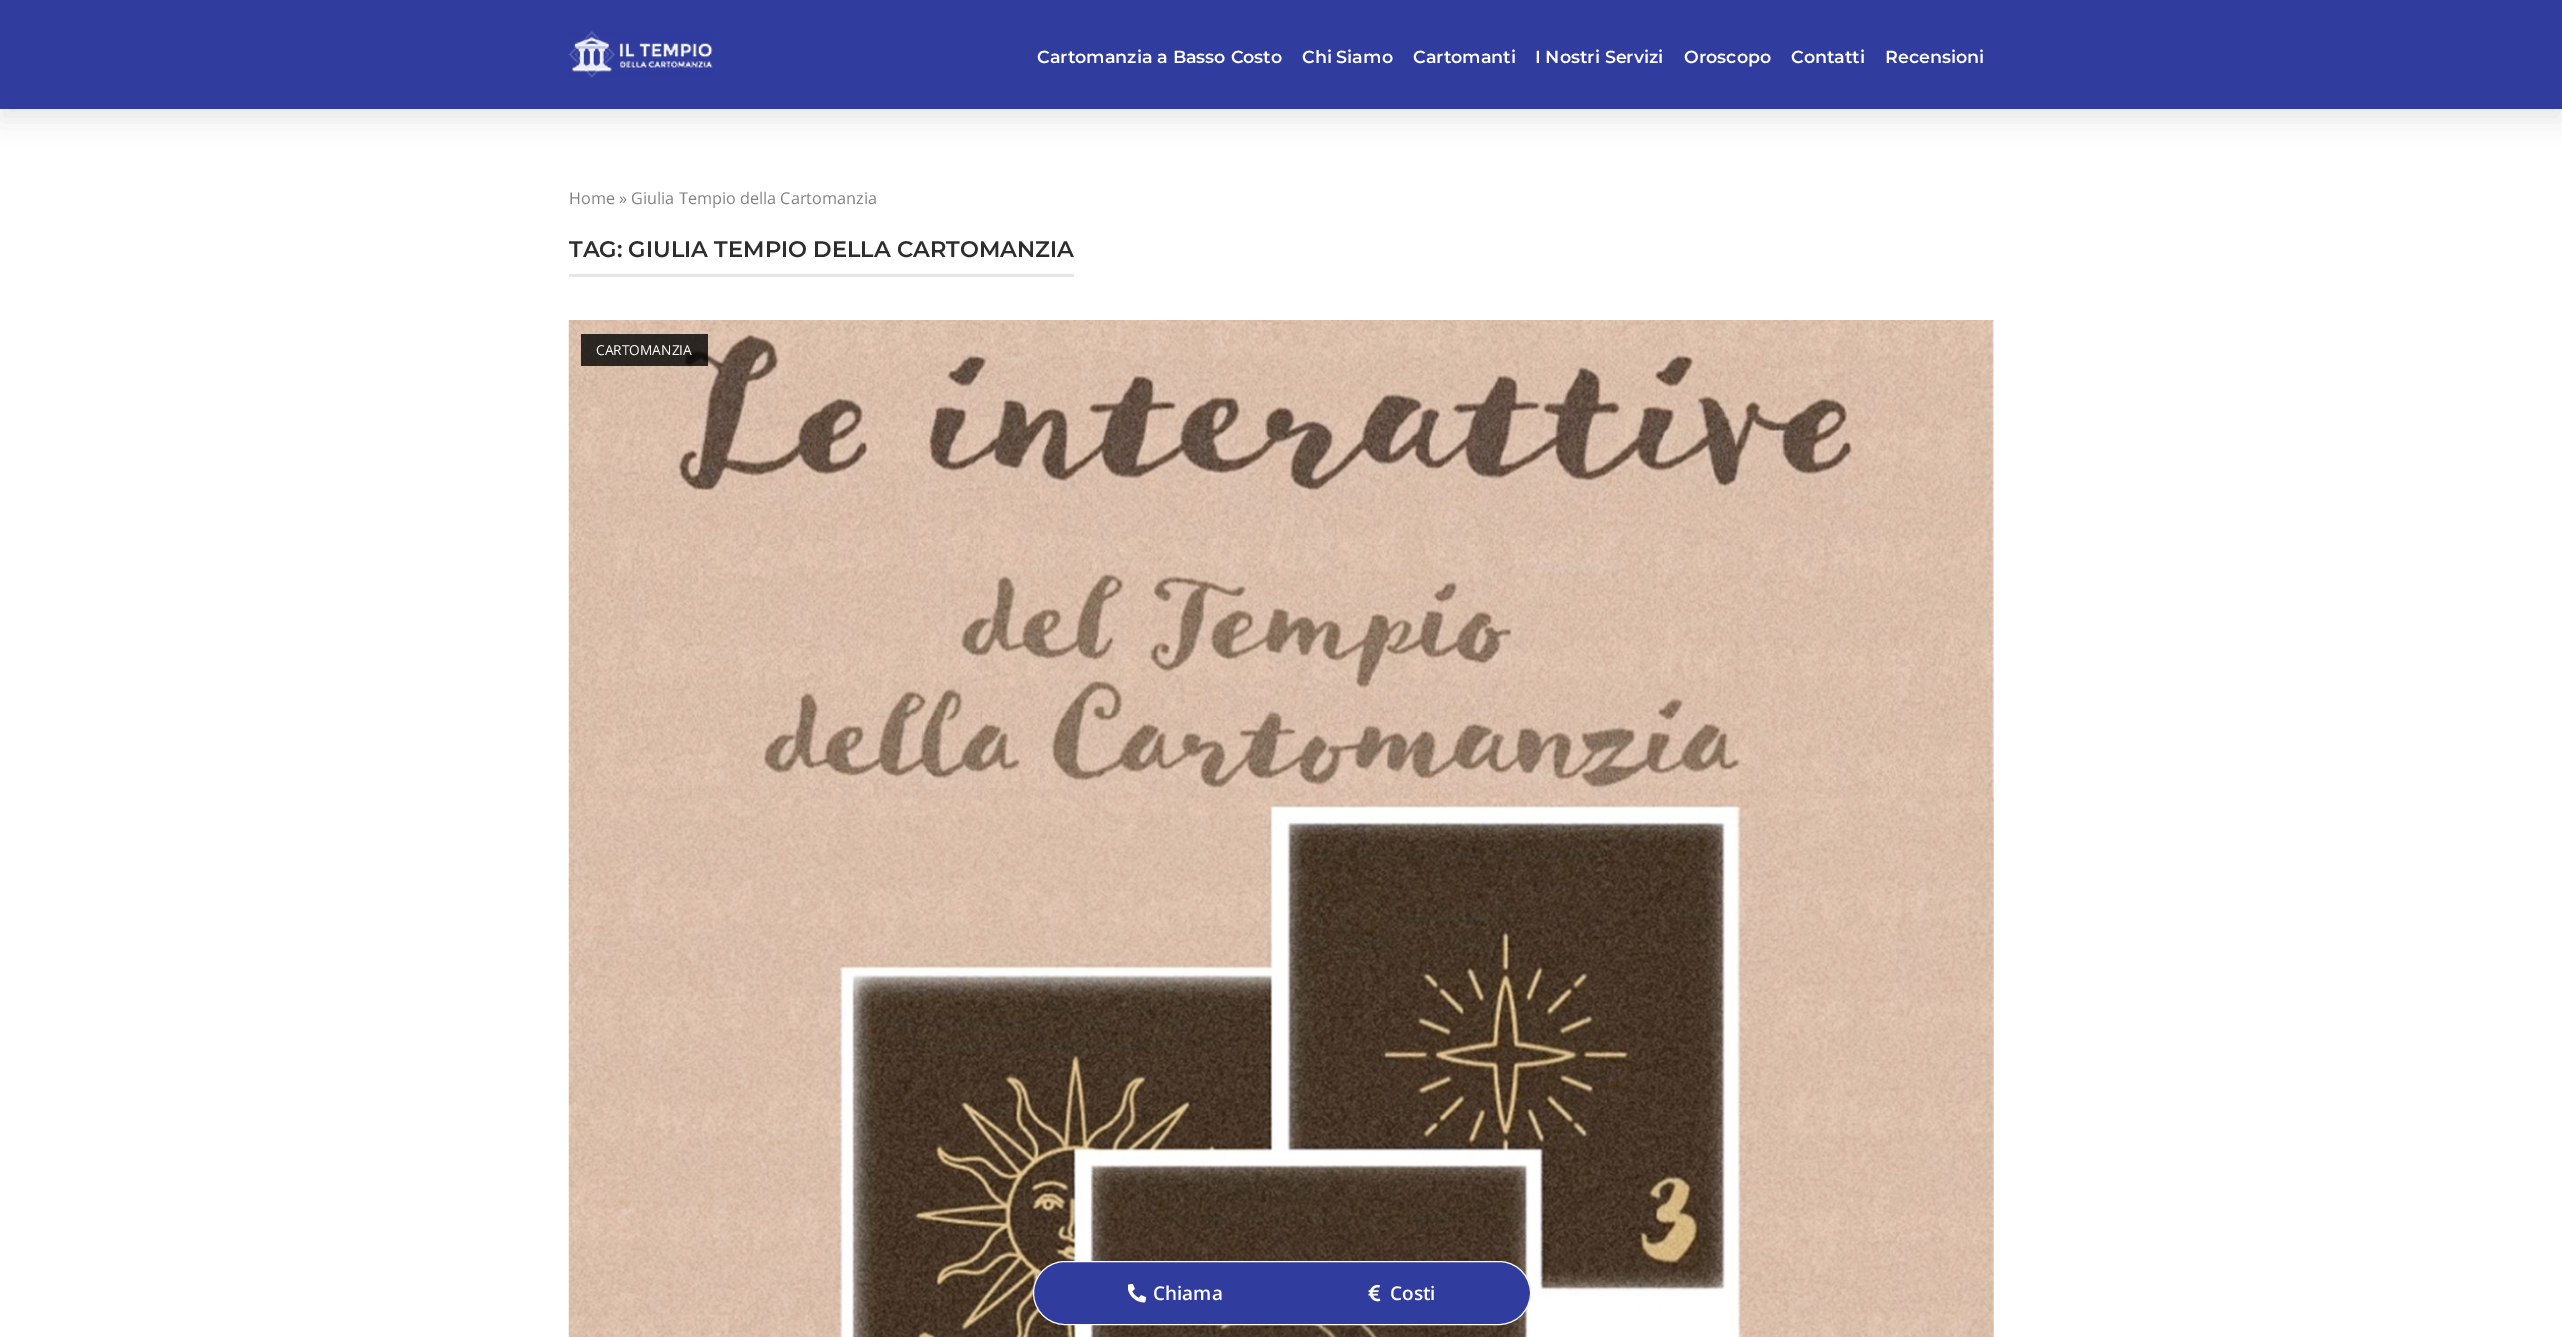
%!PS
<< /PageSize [2562 1337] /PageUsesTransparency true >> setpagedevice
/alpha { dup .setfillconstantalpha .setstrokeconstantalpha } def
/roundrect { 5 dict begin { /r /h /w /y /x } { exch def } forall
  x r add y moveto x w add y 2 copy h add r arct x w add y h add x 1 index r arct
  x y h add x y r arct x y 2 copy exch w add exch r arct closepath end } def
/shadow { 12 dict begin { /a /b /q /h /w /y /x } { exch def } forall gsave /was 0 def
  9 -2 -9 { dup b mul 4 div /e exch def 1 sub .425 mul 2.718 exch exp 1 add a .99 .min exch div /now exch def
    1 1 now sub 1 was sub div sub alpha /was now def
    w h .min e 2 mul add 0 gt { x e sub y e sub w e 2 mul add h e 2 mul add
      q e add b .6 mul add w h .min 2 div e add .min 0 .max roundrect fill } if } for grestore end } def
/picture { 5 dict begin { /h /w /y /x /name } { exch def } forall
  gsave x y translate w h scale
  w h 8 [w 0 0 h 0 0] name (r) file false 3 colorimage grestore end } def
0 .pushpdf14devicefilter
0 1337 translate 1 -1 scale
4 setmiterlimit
1 setgray
0 0 2562 1337 rectfill
0 setgray
0 13 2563 108 0 12.5 0.09 shadow
0.188 0.235 0.62 setrgbcolor
0 0 2562 109 rectfill
(img1.rgb) 568 31 145 47 picture
/Montserrat-SemiBold [17.5 0 0 -17.5 0 0] selectfont
1 setgray
1037 63 moveto (Cartomanzia a Basso Costo) show
1302 63 moveto (Chi Siamo) show
1413 63 moveto (Cartomanti) show
1535 63 moveto (I Nostri Servizi) show
1684 63 moveto (Oroscopo) show
1791 63 moveto (Contatti) show
1885 63 moveto (Recensioni) show
/OpenSans-Regular [16.25 0 0 -16.25 0 0] selectfont
0.51 setgray
569 204 moveto (Home » Giulia Tempio della Cartomanzia) show
0.902 setgray
569 274 505 3 rectfill
/Montserrat-SemiBold [22.5 0 0 -22.5 0 0] selectfont
0.176 setgray
569 257 moveto (TAG: GIULIA TEMPIO DELLA CARTOMANZIA) show
(img2.rgb) 568 320 1426 1017 picture
0.8 alpha
0 setgray
581 334 127 32 rectfill
/OpenSans-Regular [13.75 0 0 -13.75 0 0] selectfont
1 alpha
1 setgray
596 355 moveto (CARTOMANZIA) show
0.188 0.235 0.62 setrgbcolor
1033.5 1261.5 497 63 31.5 roundrect gsave fill grestore
1 setgray
stroke
(img3.rgb) 1128 1284 18 19 picture
/OpenSans-SemiBold [19 0 0 -19 0 0] selectfont
1153 1300 moveto (Chiama) show
(img4.rgb) 1368 1284 13 18 picture
1390 1300 moveto (Costi) show
.poppdf14devicefilter showpage
